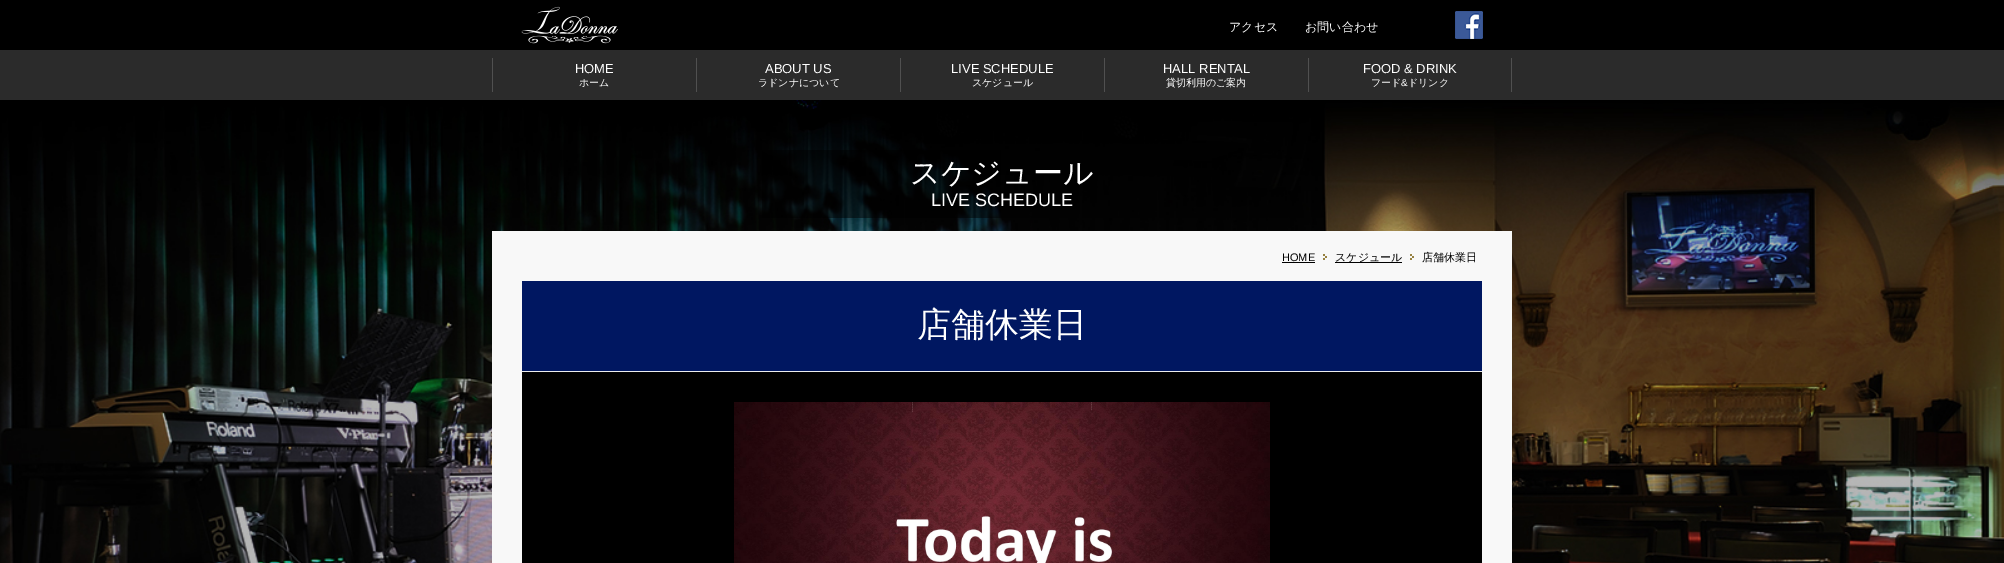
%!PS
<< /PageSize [2004 563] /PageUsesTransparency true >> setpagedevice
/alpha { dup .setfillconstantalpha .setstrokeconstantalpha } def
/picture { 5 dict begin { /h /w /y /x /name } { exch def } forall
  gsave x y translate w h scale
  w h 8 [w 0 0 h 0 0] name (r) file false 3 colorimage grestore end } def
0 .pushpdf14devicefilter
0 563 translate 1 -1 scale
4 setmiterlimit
0 setgray
0 0 2004 563 rectfill
(img1.rgb) 521 6 97 38 picture
/WenQuanYiZenHei-Medium [12 0 0 -12 0 0] selectfont
1 setgray
1229 31 moveto (アクセス) show
1305 31 moveto (お問い合わせ) show
(img2.rgb) 1455 11 28 28 picture
0.169 setgray
0 50 2004 50 rectfill
0.314 setgray
492 58 1 34 rectfill
/LiberationSans-Regular [13 0 0 -13 0 0] selectfont
1 setgray
575 73 moveto (HOME) show
/WenQuanYiZenHei-Medium [10 0 0 -10 0 0] selectfont
579 86 moveto (ホーム) show
0.314 setgray
696 58 1 34 rectfill
/LiberationSans-Regular [13 0 0 -13 0 0] selectfont
1 setgray
765 73 moveto (ABOUT US) show
/WenQuanYiZenHei-Medium [10 0 0 -10 0 0] selectfont
758 86 moveto (ラドンナについて) show
0.314 setgray
900 58 1 34 rectfill
/LiberationSans-Regular [13 0 0 -13 0 0] selectfont
1 setgray
951 73 moveto (LIVE SCHEDULE) show
/WenQuanYiZenHei-Medium [10 0 0 -10 0 0] selectfont
972 86 moveto (スケジュール) show
0.314 setgray
1104 58 1 34 rectfill
/LiberationSans-Regular [13 0 0 -13 0 0] selectfont
1 setgray
1163 73 moveto (HALL RENTAL) show
/WenQuanYiZenHei-Medium [10 0 0 -10 0 0] selectfont
1166 86 moveto (貸切利用のご案内) show
0.314 setgray
1511 58 1 34 rectfill
1308 58 1 34 rectfill
/LiberationSans-Regular [13 0 0 -13 0 0] selectfont
1 setgray
1363 73 moveto (FOOD & DRINK) show
/WenQuanYiZenHei-Medium [10 0 0 -10 0 0] selectfont
1371 86 moveto (フード) show
/LiberationSans-Regular [10 0 0 -10 0 0] selectfont
1401 86 moveto (&) show
/WenQuanYiZenHei-Medium [10 0 0 -10 0 0] selectfont
1408 86 moveto (ドリンク) show
(img3.rgb) 0 100 2004 463 picture
0.5 alpha
0 setgray
762 150 239 68 rectfill
/WenQuanYiZenHei-Medium [30 0 0 -30 0 0] selectfont
1 alpha
1 setgray
910 183 moveto (スケジュール) show
/LiberationSans-Regular [18 0 0 -18 0 0] selectfont
931 206 moveto (LIVE SCHEDULE) show
0.973 setgray
492 231 1020 332 rectfill
(img4.rgb) 1323 254 4 6 picture
/LiberationSans-Regular [11 0 0 -11 0 0] selectfont
0 setgray
1282 261 moveto (HOME) show
1282 262 33 1 rectfill
(img4.rgb) 1410 254 4 6 picture
1335 262 67 1 rectfill
/WenQuanYiZenHei-Medium [11 0 0 -11 0 0] selectfont
1335 261 moveto (スケジュール) show
1422 261 moveto (店舗休業日) show
0 0.09 0.38 setrgbcolor
522 281 960 90 rectfill
0.925 setgray
522 371 960 1 rectfill
/WenQuanYiZenHei-Medium [34 0 0 -34 0 0] selectfont
1 setgray
917 336 moveto (店舗休業日) show
0 setgray
522 372 960 191 rectfill
(img5.rgb) 734 402 536 161 picture
.poppdf14devicefilter showpage
